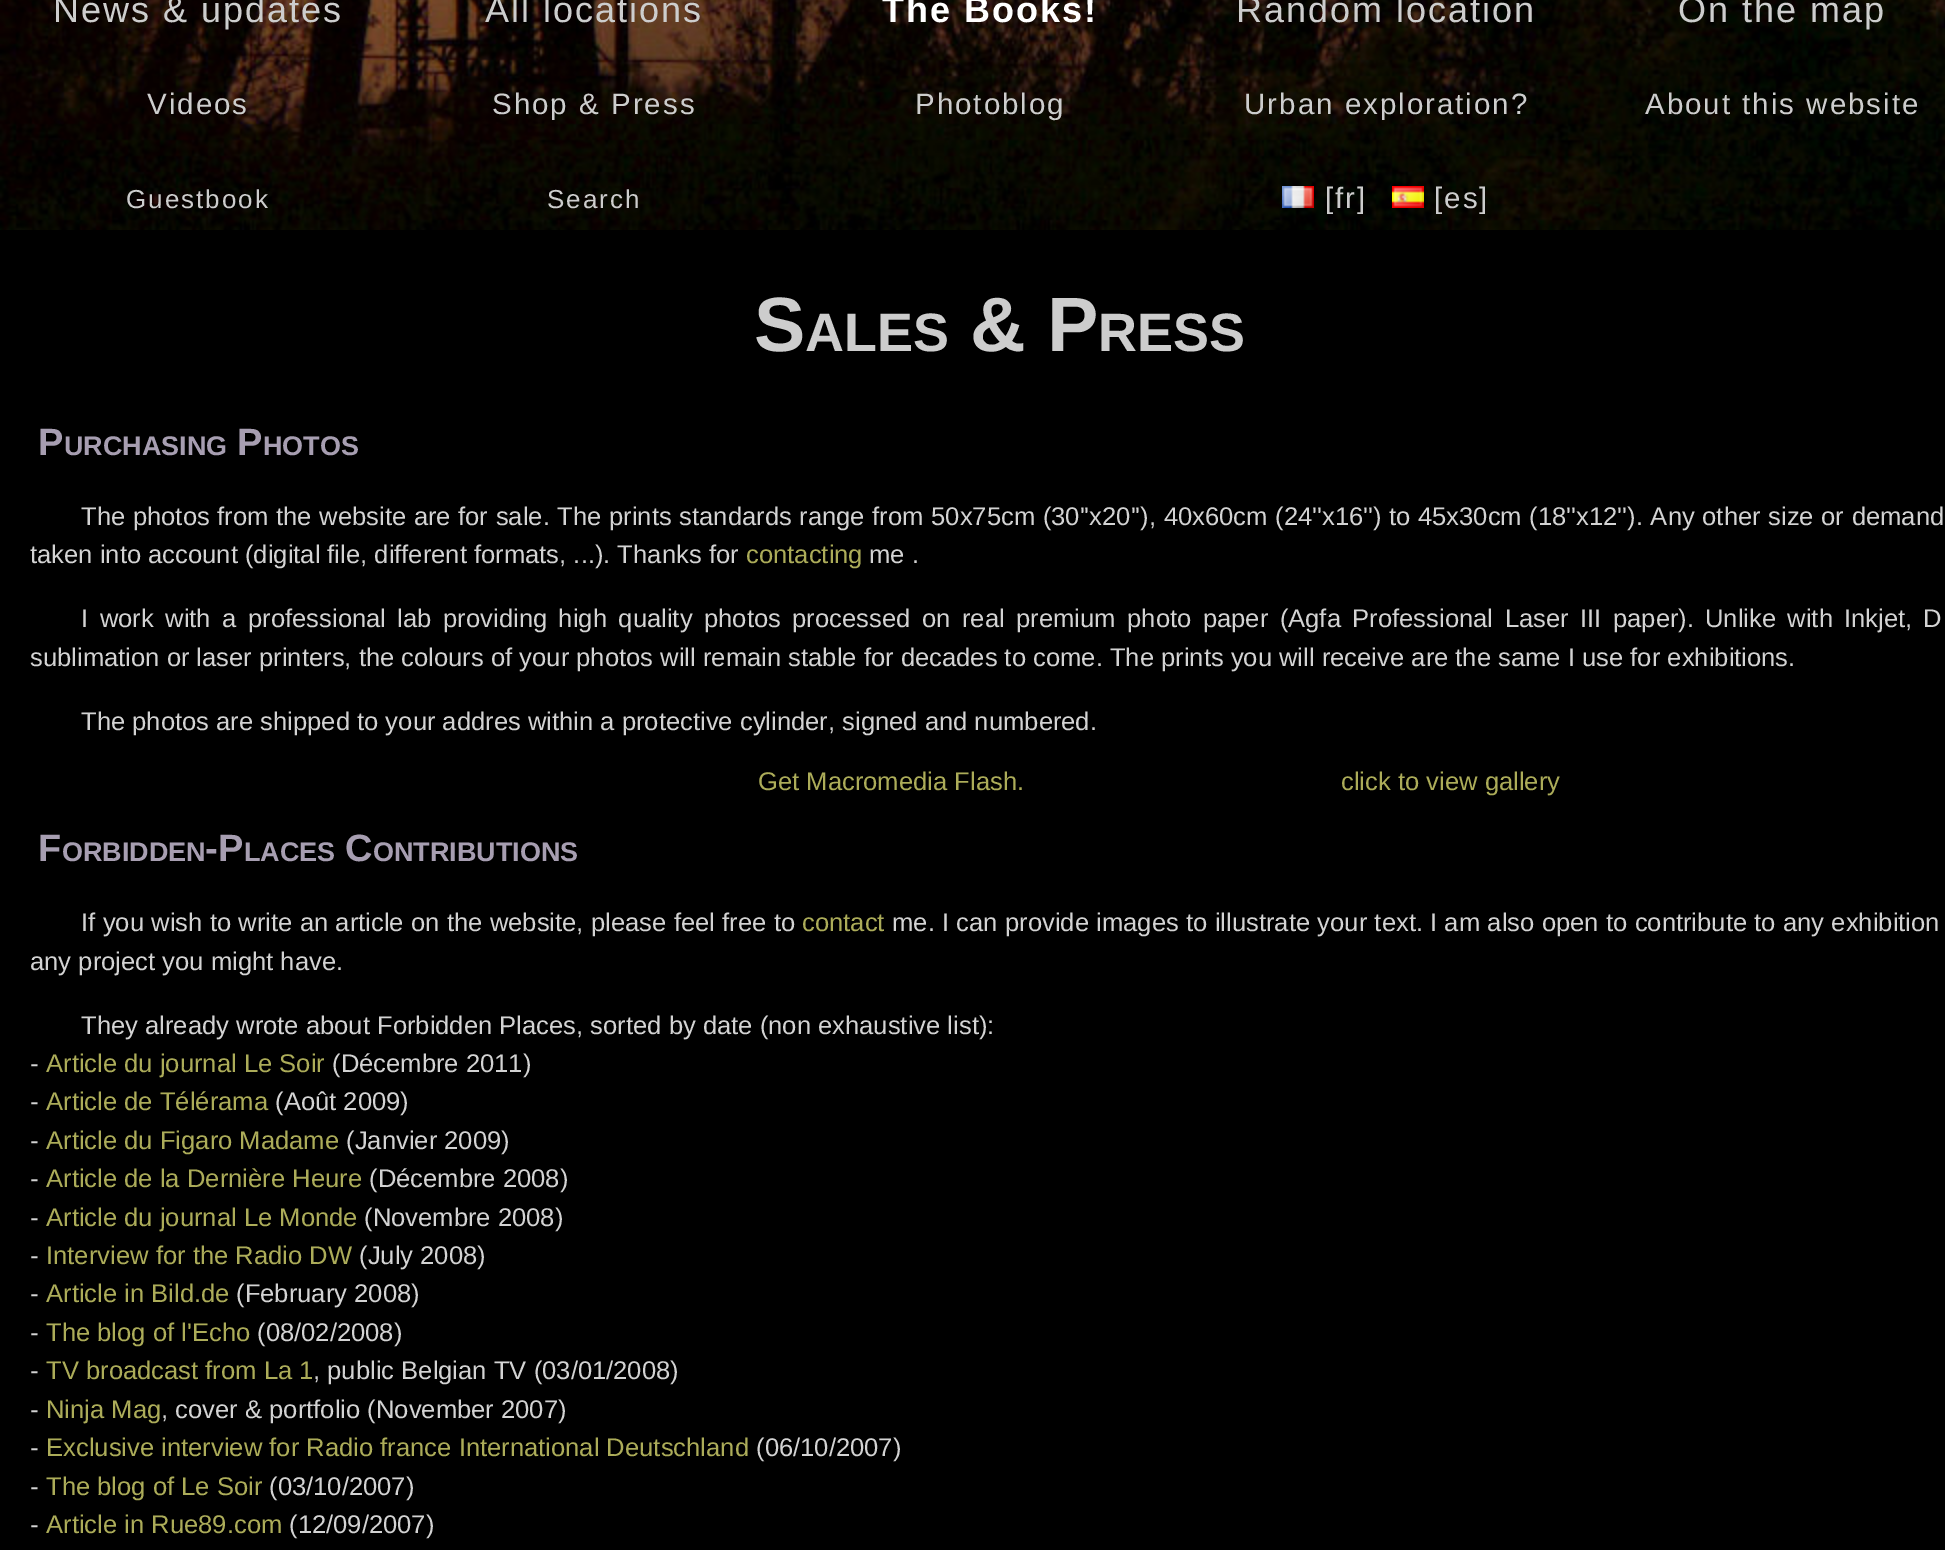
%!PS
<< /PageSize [1945 1550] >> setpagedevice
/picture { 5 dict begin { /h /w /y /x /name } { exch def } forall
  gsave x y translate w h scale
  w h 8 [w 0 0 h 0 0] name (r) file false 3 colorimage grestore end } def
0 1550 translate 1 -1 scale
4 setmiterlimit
0 setgray
0 0 1945 1550 rectfill
(img1.rgb) 0 0 1945 230 picture
/LiberationSans-Regular [36 0 0 -36 0 0] selectfont
0.804 setgray
53 22 moveto 2 0 (News & updates) ashow
485 22 moveto 2 0 (All locations) ashow
/LiberationSans-Bold [36 0 0 -36 0 0] selectfont
1 setgray
882 22 moveto 2 0 (The Books!) ashow
/LiberationSans-Regular [36 0 0 -36 0 0] selectfont
0.804 setgray
1236 22 moveto 2 0 (Random location) ashow
1678 22 moveto 2 0 (On the map) ashow
/LiberationSans-Regular [29.5 0 0 -29.5 0 0] selectfont
147 114 moveto 2 0 (Videos) ashow
492 114 moveto 2 0 (Shop & Press) ashow
915 114 moveto 2 0 (Photoblog) ashow
1244 114 moveto 2 0 (Urban exploration?) ashow
1645 114 moveto 2 0 (About this website) ashow
/LiberationSans-Regular [26 0 0 -26 0 0] selectfont
126 208 moveto 2 0 (Guestbook) ashow
547 208 moveto 2 0 (Search) ashow
(img2.rgb) 1282 186 32 22 picture
/LiberationSans-Regular [29.5 0 0 -29.5 0 0] selectfont
1325 208 moveto 2 0 ([fr]) ashow
(img3.rgb) 1392 186 32 22 picture
1434 208 moveto 2 0 ([es]) ashow
/LiberationSans-Bold [77 0 0 -77 0 0] selectfont
754 351 moveto (S) show
/LiberationSans-Bold [54 0 0 -54 0 0] selectfont
805 351 moveto (ALES) show
/LiberationSans-Bold [77 0 0 -77 0 0] selectfont
970 351 moveto (& P) show
/LiberationSans-Bold [54 0 0 -54 0 0] selectfont
1098 351 moveto (RESS) show
/LiberationSans-Bold [38 0 0 -38 0 0] selectfont
0.655 0.62 0.694 setrgbcolor
38 455 moveto (P) show
/LiberationSans-Bold [27 0 0 -27 0 0] selectfont
64 455 moveto (URCHASING) show
/LiberationSans-Bold [38 0 0 -38 0 0] selectfont
237 455 moveto (P) show
/LiberationSans-Bold [27 0 0 -27 0 0] selectfont
263 455 moveto (HOTOS) show
/LiberationSans-Regular [25.6 0 0 -25.6 0 0] selectfont
0.827 setgray
81 525 moveto 0.5 0 32 (The photos from the website are for sale. The prints standards range from 50x75cm \(30''x20''\), 40x60cm \(24''x16''\) to 45x30cm \(18''x12''\). Any other size or demand) widthshow
30 563 moveto (taken into account \(digital file, different formats, ...\). Thanks for) show
0.675 0.675 0.349 setrgbcolor
746 563 moveto (contacting) show
0.827 setgray
869 563 moveto (me .) show
81 627 moveto 4.4 0 32 (I work with a professional lab providing high quality photos processed on real) widthshow
1016 627 moveto 4.4 0 32 (premium photo paper \(Agfa Professional Laser III paper\).) widthshow
1705 627 moveto 4 0 32 (Unlike with Inkjet, D) widthshow
30 666 moveto (sublimation or laser printers, the colours of your photos will remain stable for decades to come. The prints you will receive are the same I use for exhibitions.) show
81 730 moveto (The photos are shipped to your addres within a protective cylinder, signed and numbered.) show
0.675 0.675 0.349 setrgbcolor
758 790 moveto (Get Macromedia Flash.) show
1341 790 moveto (click to view gallery) show
/LiberationSans-Bold [38 0 0 -38 0 0] selectfont
0.655 0.62 0.694 setrgbcolor
38 861 moveto (F) show
/LiberationSans-Bold [27 0 0 -27 0 0] selectfont
62 861 moveto (ORBIDDEN) show
/LiberationSans-Bold [38 0 0 -38 0 0] selectfont
205 861 moveto (-P) show
/LiberationSans-Bold [27 0 0 -27 0 0] selectfont
244 861 moveto (LACES) show
/LiberationSans-Bold [38 0 0 -38 0 0] selectfont
345 861 moveto (C) show
/LiberationSans-Bold [27 0 0 -27 0 0] selectfont
373 861 moveto (ONTRIBUTIONS) show
/LiberationSans-Regular [25.6 0 0 -25.6 0 0] selectfont
0.827 setgray
81 931 moveto 0.2 0 32 (If you wish to write an article on the website, please feel free to) widthshow
0.675 0.675 0.349 setrgbcolor
802 931 moveto (contact) show
0.827 setgray
892 931 moveto 0.2 0 32 (me. I can provide images to illustrate your text. I am also open to contribute to any exhibition) widthshow
30 970 moveto (any project you might have.) show
81 1034 moveto (They already wrote about Forbidden Places, sorted by date \(non exhaustive list\):) show
30 1072 moveto (-) show
0.675 0.675 0.349 setrgbcolor
46 1072 moveto (Article du journal Le Soir) show
0.827 setgray
332 1072 moveto (\(Décembre 2011\)) show
30 1110 moveto (-) show
0.675 0.675 0.349 setrgbcolor
46 1110 moveto (Article de Télérama) show
0.827 setgray
275 1110 moveto (\(Août 2009\)) show
30 1149 moveto (-) show
0.675 0.675 0.349 setrgbcolor
46 1149 moveto (Article du Figaro Madame) show
0.827 setgray
346 1149 moveto (\(Janvier 2009\)) show
30 1187 moveto (-) show
0.675 0.675 0.349 setrgbcolor
46 1187 moveto (Article de la Dernière Heure) show
0.827 setgray
369 1187 moveto (\(Décembre 2008\)) show
30 1226 moveto (-) show
0.675 0.675 0.349 setrgbcolor
46 1226 moveto (Article du journal Le Monde) show
0.827 setgray
364 1226 moveto (\(Novembre 2008\)) show
30 1264 moveto (-) show
0.675 0.675 0.349 setrgbcolor
46 1264 moveto (Interview for the Radio DW) show
0.827 setgray
359 1264 moveto (\(July 2008\)) show
30 1302 moveto (-) show
0.675 0.675 0.349 setrgbcolor
46 1302 moveto (Article in Bild.de) show
0.827 setgray
236 1302 moveto (\(February 2008\)) show
30 1341 moveto (-) show
0.675 0.675 0.349 setrgbcolor
46 1341 moveto (The blog of l'Echo) show
0.827 setgray
257 1341 moveto (\(08/02/2008\)) show
30 1379 moveto (-) show
0.675 0.675 0.349 setrgbcolor
46 1379 moveto (TV broadcast from La 1) show
0.827 setgray
313 1379 moveto (, public Belgian TV \(03/01/2008\)) show
30 1418 moveto (-) show
0.675 0.675 0.349 setrgbcolor
46 1418 moveto (Ninja Mag) show
0.827 setgray
161 1418 moveto (, cover & portfolio \(November 2007\)) show
30 1456 moveto (-) show
0.675 0.675 0.349 setrgbcolor
46 1456 moveto (Exclusive interview for Radio france International Deutschland) show
0.827 setgray
756 1456 moveto (\(06/10/2007\)) show
30 1495 moveto (-) show
0.675 0.675 0.349 setrgbcolor
46 1495 moveto (The blog of Le Soir) show
0.827 setgray
269 1495 moveto (\(03/10/2007\)) show
30 1533 moveto (-) show
0.675 0.675 0.349 setrgbcolor
46 1533 moveto (Article in Rue89.com) show
0.827 setgray
289 1533 moveto (\(12/09/2007\)) show
showpage
